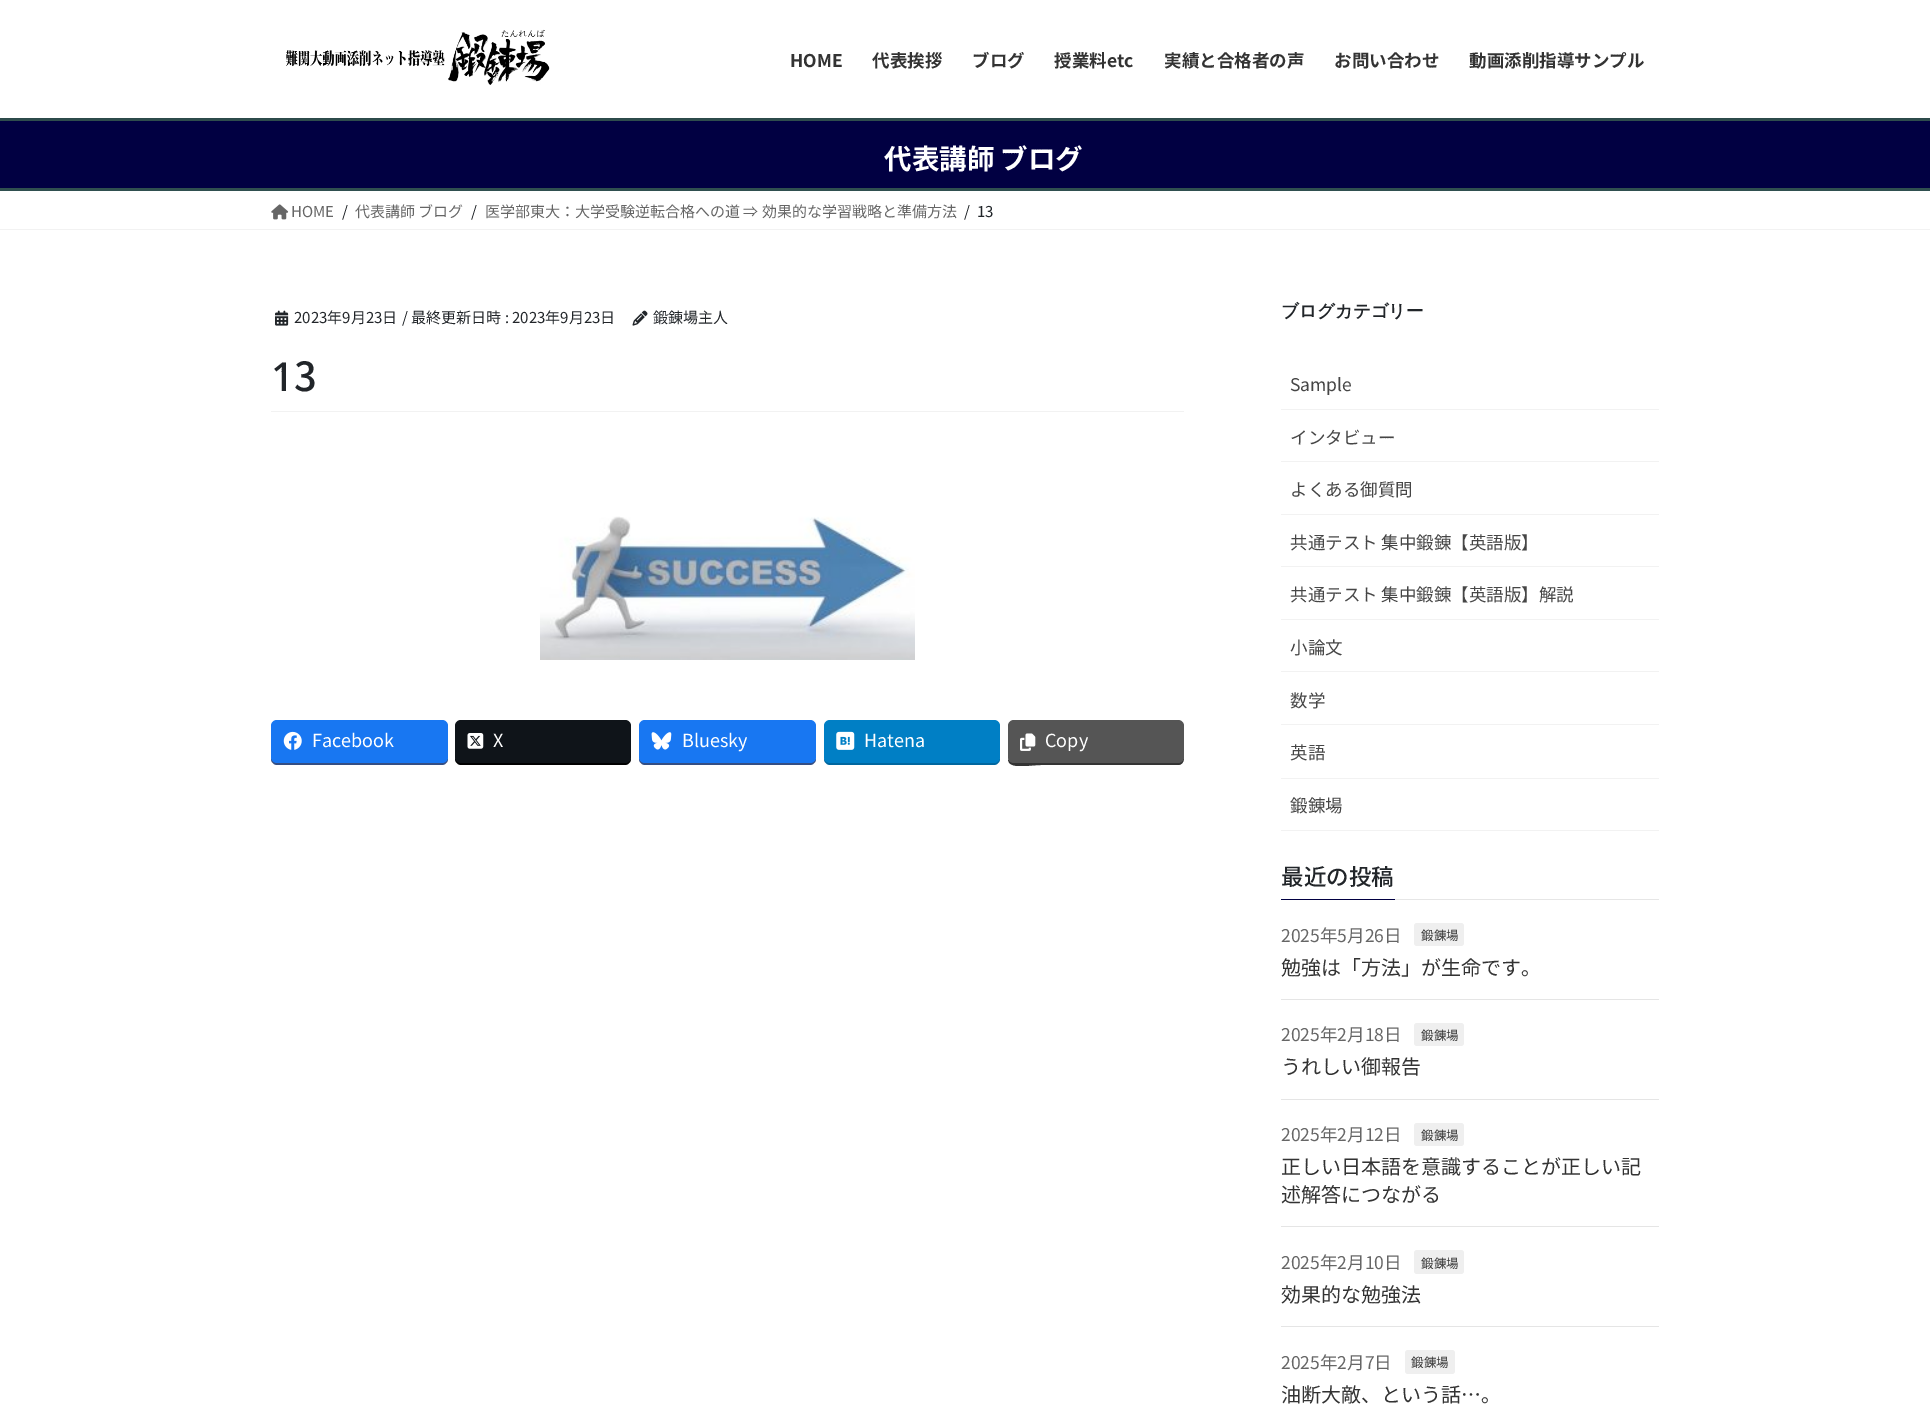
%!PS
<< /PageSize [1930 1424] /PageUsesTransparency true >> setpagedevice
/alpha { dup .setfillconstantalpha .setstrokeconstantalpha } def
/roundrect { 5 dict begin { /r /h /w /y /x } { exch def } forall
  x r add y moveto x w add y 2 copy h add r arct x w add y h add x 1 index r arct
  x y h add x y r arct x y 2 copy exch w add exch r arct closepath end } def
/shadow { 12 dict begin { /a /b /q /h /w /y /x } { exch def } forall gsave /was 0 def
  9 -2 -9 { dup b mul 4 div /e exch def 1 sub .425 mul 2.718 exch exp 1 add a .99 .min exch div /now exch def
    1 1 now sub 1 was sub div sub alpha /was now def
    w h .min e 2 mul add 0 gt { x e sub y e sub w e 2 mul add h e 2 mul add
      q e add b .6 mul add w h .min 2 div e add .min 0 .max roundrect fill } if } for grestore end } def
/picture { 5 dict begin { /h /w /y /x /name } { exch def } forall
  gsave x y translate w h scale
  w h 8 [w 0 0 h 0 0] name (r) file false 3 colorimage grestore end } def
0 .pushpdf14devicefilter
0 1424 translate 1 -1 scale
4 setmiterlimit
1 setgray
0 0 1930 1424 rectfill
0.004 0 0.259 setrgbcolor
0 121 1930 67 rectfill
0.184 0.31 0.31 setrgbcolor
0 118 1930 3 rectfill
0 setgray
0 1 1930 118 0 2 0.1 shadow
1 setgray
0 0 1930 118 rectfill
(img1.rgb) 286 29 264 56 picture
/NotoSansJP-Bold [17.5 0 0 -17.5 0 0] selectfont
0.2 setgray
790 67 moveto (HOME) show
872 67 moveto (代表挨拶) show
972 67 moveto (ブログ) show
1054 67 moveto (授業料etc) show
1164 67 moveto (実績と合格者の声) show
1334 67 moveto (お問い合わせ) show
1469 67 moveto (動画添削指導サンプル) show
0.184 0.31 0.31 setrgbcolor
0 188 1930 3 rectfill
/NotoSansJP-Bold [27.5 0 0 -27.5 0 0] selectfont
1 setgray
884 169 moveto (代表講師 ブログ) show
0.949 setgray
0 229 1930 1 rectfill
(img2.rgb) 271 204 18 16 picture
/NotoSansJP-Regular [15 0 0 -15 0 0] selectfont
0.4 setgray
291 217 moveto (HOME) show
0.129 0.145 0.161 setrgbcolor
342 217 moveto (/) show
0.4 setgray
355 217 moveto (代表講師 ブログ) show
0.129 0.145 0.161 setrgbcolor
471 217 moveto (/) show
0.4 setgray
485 217 moveto (医学部東大：大学受験逆転合格への道 ⇒ 効果的な学習戦略と準備方法) show
0.129 0.145 0.161 setrgbcolor
964 217 moveto (/) show
977 217 moveto (13) show
0.949 setgray
271 411 913 1 rectfill
(img3.rgb) 275 310 14 16 picture
0.129 0.145 0.161 setrgbcolor
294 323 moveto (2023年9月23日) show
402 323 moveto (/ 最終更新日時 : 2023年9月23日) show
(img4.rgb) 632 310 16 16 picture
653 323 moveto (鍛錬場主人) show
/NotoSans-Medium [40 0 0 -40 0 0] selectfont
271 391 moveto (1) show
/NotoSansJP-Medium [40 0 0 -40 0 0] selectfont
294 391 moveto (3) show
(img5.rgb) 540 516 375 144 picture
0.204 0.306 0.518 setrgbcolor
newpath 271 727 moveto 271 759 lineto 271 762 274 765 277 765 curveto 442 765 lineto 445 765 448 762 448 759 curveto 448 729 lineto 448 727 lineto 448 756 lineto 448 760 445 762 441 762 curveto 278 762 lineto 274 762 271 760 271 756 curveto closepath fill
0.094 0.467 0.949 setrgbcolor
271 720 177 43 6 roundrect fill
(img6.rgb) 283 731 19 19 picture
/NotoSansJP-Regular [18 0 0 -18 0 0] selectfont
1 setgray
312 747 moveto (Facebook) show
0 setgray
newpath 455 756 moveto 455 759 lineto 455 762 458 765 461 765 curveto 625 765 lineto 628 765 631 762 631 759 curveto 631 758 lineto 630 761 628 762 625 762 curveto 461 762 lineto 458 762 455 760 455 756 curveto closepath fill
0.059 0.078 0.098 setrgbcolor
455 720 176 43 6 roundrect fill
(img7.rgb) 467 733 17 16 picture
1 setgray
493 747 moveto (X) show
0.204 0.306 0.518 setrgbcolor
newpath 639 758 moveto 639 759 lineto 639 762 642 765 645 765 curveto 810 765 lineto 813 765 816 762 816 759 curveto 816 758 lineto 815 761 813 762 810 762 curveto 645 762 lineto 642 762 640 761 639 758 curveto closepath fill
0.094 0.467 0.949 setrgbcolor
639 720 177 43 6 roundrect fill
(img8.rgb) 651 732 21 18 picture
1 setgray
682 747 moveto (Bluesky) show
0 0.404 0.624 setrgbcolor
newpath 824 758 moveto 824 759 lineto 824 762 827 765 830 765 curveto 994 765 lineto 997 765 1000 762 1000 759 curveto 1000 756 lineto 1000 760 997 762 994 762 curveto 830 762 lineto 827 762 825 761 824 758 curveto closepath fill
0 0.498 0.773 setrgbcolor
824 720 176 43 6 roundrect fill
(img9.rgb) 836 731 19 19 picture
1 setgray
864 747 moveto (Hatena) show
gsave
271 720 913 46 rectclip
0.2 setgray
newpath 1008 759 moveto 1008 770 1029 765 1041 765 curveto 1178 765 lineto 1186 765 1184 754 1184 749 curveto 1184 727 lineto 1184 756 lineto 1184 760 1181 762 1178 762 curveto 1014 762 lineto 1011 762 1009 761 1008 759 curveto closepath fill
grestore
0.333 setgray
1008 720 176 43 6 roundrect fill
(img10.rgb) 1020 733 16 18 picture
1 setgray
1045 747 moveto (Copy) show
/WenQuanYiZenHei-Bold [17.5 0 0 -17.5 0 0] selectfont
0.129 0.145 0.161 setrgbcolor
1281 317 moveto (ブログカテゴリー) show
0.949 setgray
1281 409 378 1 rectfill
/NotoSansJP-Regular [17.5 0 0 -17.5 0 0] selectfont
0.275 setgray
1290 391 moveto (Sample) show
0.949 setgray
1281 461 378 1 rectfill
0.275 setgray
1290 444 moveto (インタビュー) show
0.949 setgray
1281 514 378 1 rectfill
0.275 setgray
1290 496 moveto (よくある御質問) show
0.949 setgray
1281 566 378 1 rectfill
0.275 setgray
1290 549 moveto (共通テスト 集中鍛錬【英語版】) show
0.949 setgray
1281 619 378 1 rectfill
0.275 setgray
1290 601 moveto (共通テスト 集中鍛錬【英語版】解説) show
0.949 setgray
1281 671 378 1 rectfill
0.275 setgray
1290 654 moveto (小論文) show
0.949 setgray
1281 724 378 1 rectfill
0.275 setgray
1290 707 moveto (数学) show
0.949 setgray
1281 778 378 1 rectfill
0.275 setgray
1290 759 moveto (英語) show
0.949 setgray
1281 830 378 1 rectfill
0.275 setgray
1290 812 moveto (鍛錬場) show
0.902 setgray
1395 899 264 1 rectfill
/NotoSansJP-Medium [22.5 0 0 -22.5 0 0] selectfont
0.129 0.145 0.161 setrgbcolor
1281 885 moveto (最近の投稿) show
0.004 0 0.259 setrgbcolor
1281 899 114 1 rectfill
0.898 setgray
1281 999 378 1 rectfill
/NotoSansJP-Regular [17.5 0 0 -17.5 0 0] selectfont
0.4 setgray
1281 942 moveto (2025年5月26日) show
0.937 setgray
1414 923 50 23 3 roundrect fill
/NotoSansJP-Regular [12.5 0 0 -12.5 0 0] selectfont
0.2 setgray
1421 940 moveto (鍛錬場) show
/NotoSansJP-Regular [20 0 0 -20 0 0] selectfont
1281 975 moveto (勉強は「方法」が生命です。) show
0.898 setgray
1281 1099 378 1 rectfill
/NotoSansJP-Regular [17.5 0 0 -17.5 0 0] selectfont
0.4 setgray
1281 1041 moveto (2025年2月18日) show
0.937 setgray
1414 1023 50 23 3 roundrect fill
/NotoSansJP-Regular [12.5 0 0 -12.5 0 0] selectfont
0.2 setgray
1421 1040 moveto (鍛錬場) show
/NotoSansJP-Regular [20 0 0 -20 0 0] selectfont
1281 1074 moveto (うれしい御報告) show
0.898 setgray
1281 1226 378 1 rectfill
/NotoSansJP-Regular [17.5 0 0 -17.5 0 0] selectfont
0.4 setgray
1281 1141 moveto (2025年2月12日) show
0.937 setgray
1414 1123 50 23 3 roundrect fill
/NotoSansJP-Regular [12.5 0 0 -12.5 0 0] selectfont
0.2 setgray
1421 1140 moveto (鍛錬場) show
/NotoSansJP-Regular [20 0 0 -20 0 0] selectfont
1281 1174 moveto (正しい日本語を意識することが正しい記) show
1281 1202 moveto (述解答につながる) show
0.898 setgray
1281 1326 378 1 rectfill
/NotoSansJP-Regular [17.5 0 0 -17.5 0 0] selectfont
0.4 setgray
1281 1269 moveto (2025年2月10日) show
0.937 setgray
1414 1250 50 24 3 roundrect fill
/NotoSansJP-Regular [12.5 0 0 -12.5 0 0] selectfont
0.2 setgray
1421 1268 moveto (鍛錬場) show
/NotoSansJP-Regular [20 0 0 -20 0 0] selectfont
1281 1302 moveto (効果的な勉強法) show
/NotoSansJP-Regular [17.5 0 0 -17.5 0 0] selectfont
0.4 setgray
1281 1369 moveto (2025年2月7日) show
0.937 setgray
1405 1350 50 24 3 roundrect fill
/NotoSansJP-Regular [12.5 0 0 -12.5 0 0] selectfont
0.2 setgray
1411 1367 moveto (鍛錬場) show
/NotoSansJP-Regular [20 0 0 -20 0 0] selectfont
1281 1402 moveto (油断大敵、という話…。) show
.poppdf14devicefilter showpage
